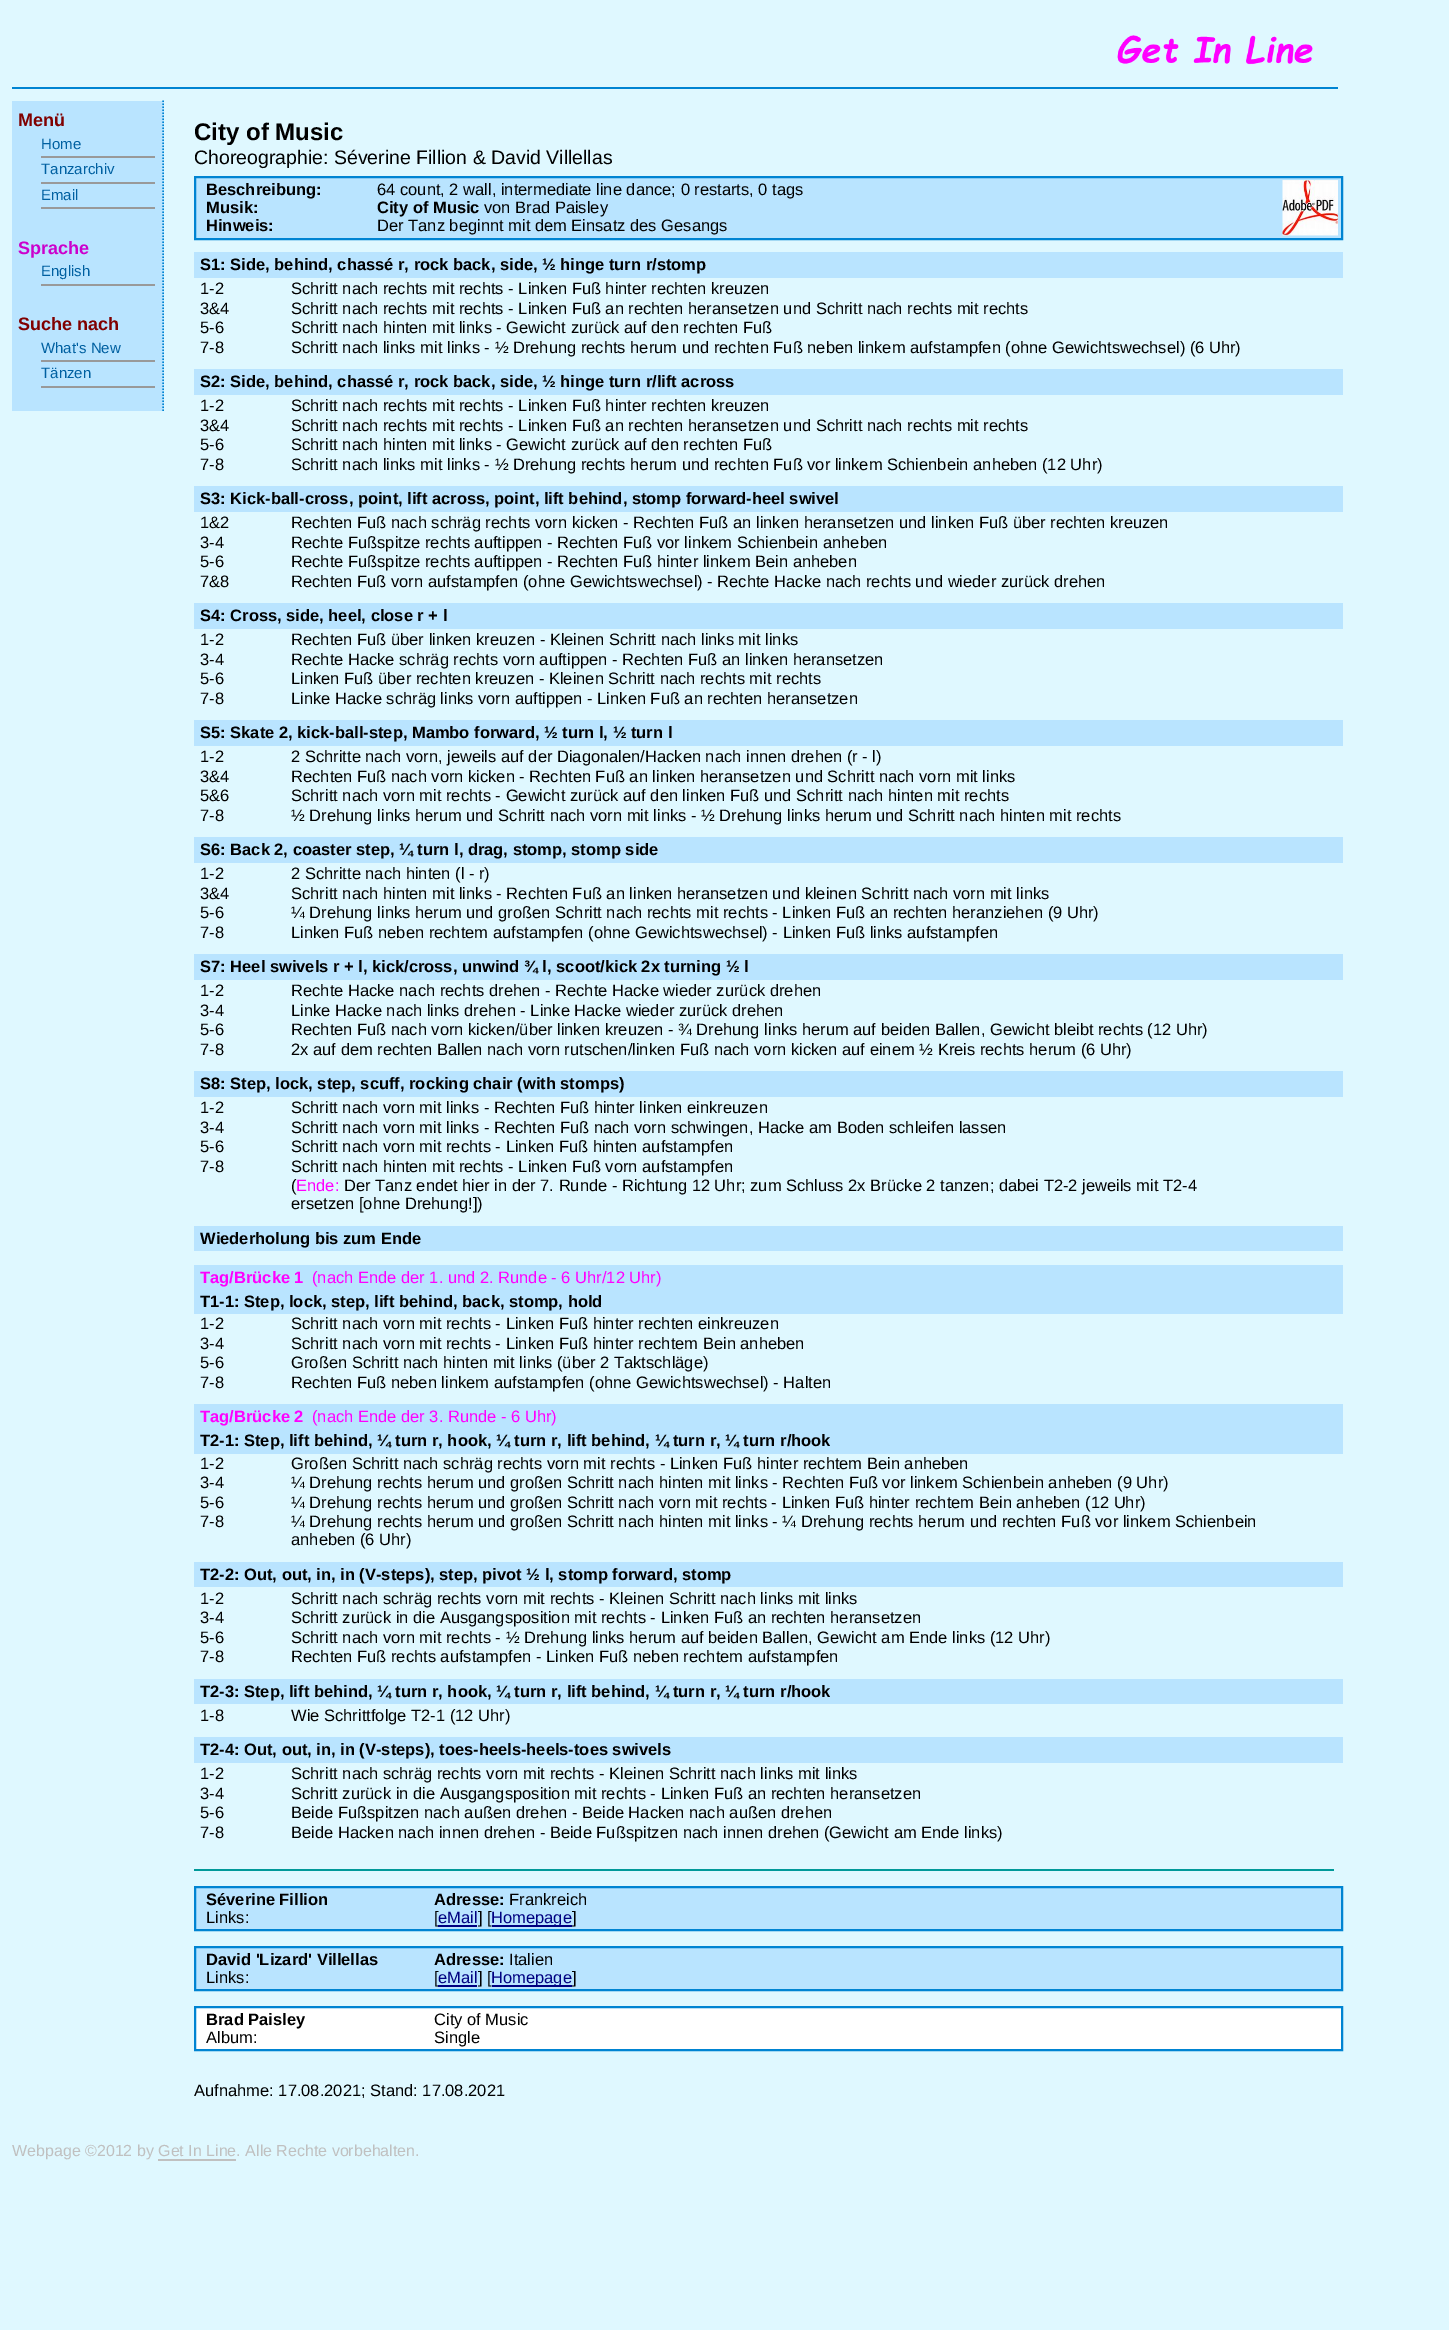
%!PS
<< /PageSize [1449 2330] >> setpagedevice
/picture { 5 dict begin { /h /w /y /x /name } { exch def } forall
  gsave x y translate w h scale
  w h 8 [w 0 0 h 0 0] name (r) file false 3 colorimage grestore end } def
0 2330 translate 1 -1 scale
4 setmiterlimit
0.875 0.973 1 setrgbcolor
0 0 1449 2330 rectfill
0 0.518 0.824 setrgbcolor
12 87 1326 2 rectfill
(img1.rgb) 1117 35 196 30 picture
0.725 0.894 1 setrgbcolor
12 101 152 310 rectfill
0 0.518 0.824 setrgbcolor
1.5 setlinewidth
[1.5 1.5] 0 setdash
newpath 163 100.5 moveto 163 411 lineto stroke
/LiberationSans-Bold [18 0 0 -18 0 0] selectfont
0.502 0 0 setrgbcolor
18 126 moveto (Menü) show
0.6 setgray
41 156 114 2 rectfill
/LiberationSans-Regular [15 0 0 -15 0 0] selectfont
0 0.376 0.631 setrgbcolor
41 149 moveto (Home) show
0.6 setgray
41 182 114 2 rectfill
0 0.376 0.631 setrgbcolor
41 174 moveto (Tanzarchiv) show
0.6 setgray
41 207 114 2 rectfill
0 0.376 0.631 setrgbcolor
41 200 moveto (Email) show
/LiberationSans-Bold [18 0 0 -18 0 0] selectfont
0.8 0 0.8 setrgbcolor
18 254 moveto (Sprache) show
0.6 setgray
41 284 114 2 rectfill
/LiberationSans-Regular [15 0 0 -15 0 0] selectfont
0 0.376 0.631 setrgbcolor
41 276 moveto (English) show
/LiberationSans-Bold [18 0 0 -18 0 0] selectfont
0.502 0 0 setrgbcolor
18 330 moveto (Suche nach) show
0.6 setgray
41 360 114 2 rectfill
/LiberationSans-Regular [15 0 0 -15 0 0] selectfont
0 0.376 0.631 setrgbcolor
41 353 moveto (What's New) show
0.6 setgray
41 386 114 2 rectfill
0 0.376 0.631 setrgbcolor
41 378 moveto (Tänzen) show
/LiberationSans-Bold [24 0 0 -24 0 0] selectfont
0 setgray
194 140 moveto (City of Music) show
/LiberationSans-Regular [19.5 0 0 -19.5 0 0] selectfont
194 164 moveto (Choreographie: Séverine Fillion & David Villellas) show
0.725 0.894 1 setrgbcolor
newpath 195 177 moveto 1342 177 lineto 1342 239 lineto 195 239 lineto closepath gsave fill grestore
0 0.518 0.824 setrgbcolor
2 setlinewidth
[] 0 setdash
stroke
/LiberationSans-Bold [16.5 0 0 -16.5 0 0] selectfont
0 setgray
206 195 moveto (Beschreibung:) show
/LiberationSans-Regular [16.5 0 0 -16.5 0 0] selectfont
377 195 moveto (64 count, 2 wall, intermediate line dance; 0 restarts, 0 tags) show
(img2.rgb) 1282 180 56 56 picture
/LiberationSans-Bold [16.5 0 0 -16.5 0 0] selectfont
206 213 moveto (Musik:) show
377 213 moveto (City of Music) show
/LiberationSans-Regular [16.5 0 0 -16.5 0 0] selectfont
484 213 moveto (von Brad Paisley) show
/LiberationSans-Bold [16.5 0 0 -16.5 0 0] selectfont
206 231 moveto (Hinweis:) show
/LiberationSans-Regular [16.5 0 0 -16.5 0 0] selectfont
377 231 moveto (Der Tanz beginnt mit dem Einsatz des Gesangs) show
0.725 0.894 1 setrgbcolor
194 252 1149 26 rectfill
/LiberationSans-Bold [16.5 0 0 -16.5 0 0] selectfont
0 setgray
200 270 moveto (S1: Side, behind, chassé r, rock back, side, ½ hinge turn r/stomp) show
/LiberationSans-Regular [16.5 0 0 -16.5 0 0] selectfont
200 294 moveto (1-2) show
291 294 moveto (Schritt nach rechts mit rechts - Linken Fuß hinter rechten kreuzen) show
200 314 moveto (3&4) show
291 314 moveto (Schritt nach rechts mit rechts - Linken Fuß an rechten heransetzen und Schritt nach rechts mit rechts) show
200 333 moveto (5-6) show
291 333 moveto (Schritt nach hinten mit links - Gewicht zurück auf den rechten Fuß) show
200 353 moveto (7-8) show
291 353 moveto (Schritt nach links mit links - ½ Drehung rechts herum und rechten Fuß neben linkem aufstampfen \(ohne Gewichtswechsel\) \(6 Uhr\)) show
0.725 0.894 1 setrgbcolor
194 369 1149 26 rectfill
/LiberationSans-Bold [16.5 0 0 -16.5 0 0] selectfont
0 setgray
200 387 moveto (S2: Side, behind, chassé r, rock back, side, ½ hinge turn r/lift across) show
/LiberationSans-Regular [16.5 0 0 -16.5 0 0] selectfont
200 411 moveto (1-2) show
291 411 moveto (Schritt nach rechts mit rechts - Linken Fuß hinter rechten kreuzen) show
200 431 moveto (3&4) show
291 431 moveto (Schritt nach rechts mit rechts - Linken Fuß an rechten heransetzen und Schritt nach rechts mit rechts) show
200 450 moveto (5-6) show
291 450 moveto (Schritt nach hinten mit links - Gewicht zurück auf den rechten Fuß) show
200 470 moveto (7-8) show
291 470 moveto (Schritt nach links mit links - ½ Drehung rechts herum und rechten Fuß vor linkem Schienbein anheben \(12 Uhr\)) show
0.725 0.894 1 setrgbcolor
194 486 1149 26 rectfill
/LiberationSans-Bold [16.5 0 0 -16.5 0 0] selectfont
0 setgray
200 504 moveto (S3: Kick-ball-cross, point, lift across, point, lift behind, stomp forward-heel swivel) show
/LiberationSans-Regular [16.5 0 0 -16.5 0 0] selectfont
200 528 moveto (1&2) show
291 528 moveto (Rechten Fuß nach schräg rechts vorn kicken - Rechten Fuß an linken heransetzen und linken Fuß über rechten kreuzen) show
200 548 moveto (3-4) show
291 548 moveto (Rechte Fußspitze rechts auftippen - Rechten Fuß vor linkem Schienbein anheben) show
200 567 moveto (5-6) show
291 567 moveto (Rechte Fußspitze rechts auftippen - Rechten Fuß hinter linkem Bein anheben) show
200 587 moveto (7&8) show
291 587 moveto (Rechten Fuß vorn aufstampfen \(ohne Gewichtswechsel\) - Rechte Hacke nach rechts und wieder zurück drehen) show
0.725 0.894 1 setrgbcolor
194 603 1149 26 rectfill
/LiberationSans-Bold [16.5 0 0 -16.5 0 0] selectfont
0 setgray
200 621 moveto (S4: Cross, side, heel, close r + l) show
/LiberationSans-Regular [16.5 0 0 -16.5 0 0] selectfont
200 645 moveto (1-2) show
291 645 moveto (Rechten Fuß über linken kreuzen - Kleinen Schritt nach links mit links) show
200 665 moveto (3-4) show
291 665 moveto (Rechte Hacke schräg rechts vorn auftippen - Rechten Fuß an linken heransetzen) show
200 684 moveto (5-6) show
291 684 moveto (Linken Fuß über rechten kreuzen - Kleinen Schritt nach rechts mit rechts) show
200 704 moveto (7-8) show
291 704 moveto (Linke Hacke schräg links vorn auftippen - Linken Fuß an rechten heransetzen) show
0.725 0.894 1 setrgbcolor
194 720 1149 26 rectfill
/LiberationSans-Bold [16.5 0 0 -16.5 0 0] selectfont
0 setgray
200 738 moveto (S5: Skate 2, kick-ball-step, Mambo forward, ½ turn l, ½ turn l) show
/LiberationSans-Regular [16.5 0 0 -16.5 0 0] selectfont
200 762 moveto (1-2) show
291 762 moveto (2 Schritte nach vorn, jeweils auf der Diagonalen/Hacken nach innen drehen \(r - l\)) show
200 782 moveto (3&4) show
291 782 moveto (Rechten Fuß nach vorn kicken - Rechten Fuß an linken heransetzen und Schritt nach vorn mit links) show
200 801 moveto (5&6) show
291 801 moveto (Schritt nach vorn mit rechts - Gewicht zurück auf den linken Fuß und Schritt nach hinten mit rechts) show
200 821 moveto (7-8) show
291 821 moveto (½ Drehung links herum und Schritt nach vorn mit links - ½ Drehung links herum und Schritt nach hinten mit rechts) show
0.725 0.894 1 setrgbcolor
194 837 1149 26 rectfill
/LiberationSans-Bold [16.5 0 0 -16.5 0 0] selectfont
0 setgray
200 855 moveto (S6: Back 2, coaster step, ¼ turn l, drag, stomp, stomp side) show
/LiberationSans-Regular [16.5 0 0 -16.5 0 0] selectfont
200 879 moveto (1-2) show
291 879 moveto (2 Schritte nach hinten \(l - r\)) show
200 899 moveto (3&4) show
291 899 moveto (Schritt nach hinten mit links - Rechten Fuß an linken heransetzen und kleinen Schritt nach vorn mit links) show
200 918 moveto (5-6) show
291 918 moveto (¼ Drehung links herum und großen Schritt nach rechts mit rechts - Linken Fuß an rechten heranziehen \(9 Uhr\)) show
200 938 moveto (7-8) show
291 938 moveto (Linken Fuß neben rechtem aufstampfen \(ohne Gewichtswechsel\) - Linken Fuß links aufstampfen) show
0.725 0.894 1 setrgbcolor
194 954 1149 26 rectfill
/LiberationSans-Bold [16.5 0 0 -16.5 0 0] selectfont
0 setgray
200 972 moveto (S7: Heel swivels r + l, kick/cross, unwind ¾ l, scoot/kick 2x turning ½ l) show
/LiberationSans-Regular [16.5 0 0 -16.5 0 0] selectfont
200 996 moveto (1-2) show
291 996 moveto (Rechte Hacke nach rechts drehen - Rechte Hacke wieder zurück drehen) show
200 1016 moveto (3-4) show
291 1016 moveto (Linke Hacke nach links drehen - Linke Hacke wieder zurück drehen) show
200 1035 moveto (5-6) show
291 1035 moveto (Rechten Fuß nach vorn kicken/über linken kreuzen - ¾ Drehung links herum auf beiden Ballen, Gewicht bleibt rechts \(12 Uhr\)) show
200 1055 moveto (7-8) show
291 1055 moveto (2x auf dem rechten Ballen nach vorn rutschen/linken Fuß nach vorn kicken auf einem ½ Kreis rechts herum \(6 Uhr\)) show
0.725 0.894 1 setrgbcolor
194 1071 1149 26 rectfill
/LiberationSans-Bold [16.5 0 0 -16.5 0 0] selectfont
0 setgray
200 1089 moveto (S8: Step, lock, step, scuff, rocking chair \(with stomps\)) show
/LiberationSans-Regular [16.5 0 0 -16.5 0 0] selectfont
200 1113 moveto (1-2) show
291 1113 moveto (Schritt nach vorn mit links - Rechten Fuß hinter linken einkreuzen) show
200 1133 moveto (3-4) show
291 1133 moveto (Schritt nach vorn mit links - Rechten Fuß nach vorn schwingen, Hacke am Boden schleifen lassen) show
200 1152 moveto (5-6) show
291 1152 moveto (Schritt nach vorn mit rechts - Linken Fuß hinten aufstampfen) show
200 1172 moveto (7-8) show
291 1172 moveto (Schritt nach hinten mit rechts - Linken Fuß vorn aufstampfen) show
291 1191 moveto (\() show
1 0 1 setrgbcolor
296 1191 moveto (Ende:) show
0 setgray
344 1191 moveto (Der Tanz endet hier in der 7. Runde - Richtung 12 Uhr; zum Schluss 2x Brücke 2 tanzen; dabei T2-2 jeweils mit T2-4) show
291 1209 moveto (ersetzen [ohne Drehung!]\)) show
0.725 0.894 1 setrgbcolor
194 1226 1149 25 rectfill
/LiberationSans-Bold [16.5 0 0 -16.5 0 0] selectfont
0 setgray
200 1244 moveto (Wiederholung bis zum Ende) show
0.725 0.894 1 setrgbcolor
194 1265 1149 49 rectfill
1 0 1 setrgbcolor
200 1283 moveto (Tag/Brücke 1) show
/LiberationSans-Regular [16.5 0 0 -16.5 0 0] selectfont
312 1283 moveto (\(nach Ende der 1. und 2. Runde - 6 Uhr/12 Uhr\)) show
/LiberationSans-Bold [16.5 0 0 -16.5 0 0] selectfont
0 setgray
200 1307 moveto (T1-1: Step, lock, step, lift behind, back, stomp, hold) show
/LiberationSans-Regular [16.5 0 0 -16.5 0 0] selectfont
200 1329 moveto (1-2) show
291 1329 moveto (Schritt nach vorn mit rechts - Linken Fuß hinter rechten einkreuzen) show
200 1349 moveto (3-4) show
291 1349 moveto (Schritt nach vorn mit rechts - Linken Fuß hinter rechtem Bein anheben) show
200 1368 moveto (5-6) show
291 1368 moveto (Großen Schritt nach hinten mit links \(über 2 Taktschläge\)) show
200 1388 moveto (7-8) show
291 1388 moveto (Rechten Fuß neben linkem aufstampfen \(ohne Gewichtswechsel\) - Halten) show
0.725 0.894 1 setrgbcolor
194 1404 1149 50 rectfill
/LiberationSans-Bold [16.5 0 0 -16.5 0 0] selectfont
1 0 1 setrgbcolor
200 1422 moveto (Tag/Brücke 2) show
/LiberationSans-Regular [16.5 0 0 -16.5 0 0] selectfont
312 1422 moveto (\(nach Ende der 3. Runde - 6 Uhr\)) show
/LiberationSans-Bold [16.5 0 0 -16.5 0 0] selectfont
0 setgray
200 1446 moveto (T2-1: Step, lift behind, ¼ turn r, hook, ¼ turn r, lift behind, ¼ turn r, ¼ turn r/hook) show
/LiberationSans-Regular [16.5 0 0 -16.5 0 0] selectfont
200 1469 moveto (1-2) show
291 1469 moveto (Großen Schritt nach schräg rechts vorn mit rechts - Linken Fuß hinter rechtem Bein anheben) show
200 1488 moveto (3-4) show
291 1488 moveto (¼ Drehung rechts herum und großen Schritt nach hinten mit links - Rechten Fuß vor linkem Schienbein anheben \(9 Uhr\)) show
200 1508 moveto (5-6) show
291 1508 moveto (¼ Drehung rechts herum und großen Schritt nach vorn mit rechts - Linken Fuß hinter rechtem Bein anheben \(12 Uhr\)) show
200 1527 moveto (7-8) show
291 1527 moveto (¼ Drehung rechts herum und großen Schritt nach hinten mit links - ¼ Drehung rechts herum und rechten Fuß vor linkem Schienbein) show
291 1545 moveto (anheben \(6 Uhr\)) show
0.725 0.894 1 setrgbcolor
194 1562 1149 25 rectfill
/LiberationSans-Bold [16.5 0 0 -16.5 0 0] selectfont
0 setgray
200 1580 moveto (T2-2: Out, out, in, in \(V-steps\), step, pivot ½ l, stomp forward, stomp) show
/LiberationSans-Regular [16.5 0 0 -16.5 0 0] selectfont
200 1604 moveto (1-2) show
291 1604 moveto (Schritt nach schräg rechts vorn mit rechts - Kleinen Schritt nach links mit links) show
200 1623 moveto (3-4) show
291 1623 moveto (Schritt zurück in die Ausgangsposition mit rechts - Linken Fuß an rechten heransetzen) show
200 1643 moveto (5-6) show
291 1643 moveto (Schritt nach vorn mit rechts - ½ Drehung links herum auf beiden Ballen, Gewicht am Ende links \(12 Uhr\)) show
200 1662 moveto (7-8) show
291 1662 moveto (Rechten Fuß rechts aufstampfen - Linken Fuß neben rechtem aufstampfen) show
0.725 0.894 1 setrgbcolor
194 1679 1149 25 rectfill
/LiberationSans-Bold [16.5 0 0 -16.5 0 0] selectfont
0 setgray
200 1697 moveto (T2-3: Step, lift behind, ¼ turn r, hook, ¼ turn r, lift behind, ¼ turn r, ¼ turn r/hook) show
/LiberationSans-Regular [16.5 0 0 -16.5 0 0] selectfont
200 1721 moveto (1-8) show
291 1721 moveto (Wie Schrittfolge T2-1 \(12 Uhr\)) show
0.725 0.894 1 setrgbcolor
194 1737 1149 26 rectfill
/LiberationSans-Bold [16.5 0 0 -16.5 0 0] selectfont
0 setgray
200 1755 moveto (T2-4: Out, out, in, in \(V-steps\), toes-heels-heels-toes swivels) show
/LiberationSans-Regular [16.5 0 0 -16.5 0 0] selectfont
200 1779 moveto (1-2) show
291 1779 moveto (Schritt nach schräg rechts vorn mit rechts - Kleinen Schritt nach links mit links) show
200 1799 moveto (3-4) show
291 1799 moveto (Schritt zurück in die Ausgangsposition mit rechts - Linken Fuß an rechten heransetzen) show
200 1818 moveto (5-6) show
291 1818 moveto (Beide Fußspitzen nach außen drehen - Beide Hacken nach außen drehen) show
200 1838 moveto (7-8) show
291 1838 moveto (Beide Hacken nach innen drehen - Beide Fußspitzen nach innen drehen \(Gewicht am Ende links\)) show
0 0.6 0.6 setrgbcolor
194 1869 1140 2 rectfill
0.725 0.894 1 setrgbcolor
newpath 195 1887 moveto 1342 1887 lineto 1342 1930 lineto 195 1930 lineto closepath gsave fill grestore
0 0.518 0.824 setrgbcolor
stroke
/LiberationSans-Bold [16.5 0 0 -16.5 0 0] selectfont
0 setgray
206 1905 moveto (Séverine Fillion) show
434 1905 moveto (Adresse:) show
/LiberationSans-Regular [16.5 0 0 -16.5 0 0] selectfont
509 1905 moveto (Frankreich) show
206 1923 moveto (Links:) show
434 1923 moveto ([) show
0 0 0.502 setrgbcolor
438 1923 moveto (eMail) show
438 1925 39 2 rectfill
0 setgray
478 1923 moveto (] [) show
0 0 0.502 setrgbcolor
492 1925 80 2 rectfill
491 1923 moveto (Homepage) show
0 setgray
572 1923 moveto (]) show
0.725 0.894 1 setrgbcolor
newpath 195 1947 moveto 1342 1947 lineto 1342 1990 lineto 195 1990 lineto closepath gsave fill grestore
0 0.518 0.824 setrgbcolor
stroke
/LiberationSans-Bold [16.5 0 0 -16.5 0 0] selectfont
0 setgray
206 1965 moveto (David 'Lizard' Villellas) show
434 1965 moveto (Adresse:) show
/LiberationSans-Regular [16.5 0 0 -16.5 0 0] selectfont
509 1965 moveto (Italien) show
206 1983 moveto (Links:) show
434 1983 moveto ([) show
0 0 0.502 setrgbcolor
438 1983 moveto (eMail) show
438 1985 39 2 rectfill
0 setgray
478 1983 moveto (] [) show
0 0 0.502 setrgbcolor
492 1985 80 2 rectfill
491 1983 moveto (Homepage) show
0 setgray
572 1983 moveto (]) show
1 setgray
newpath 195 2007 moveto 1342 2007 lineto 1342 2050 lineto 195 2050 lineto closepath gsave fill grestore
0 0.518 0.824 setrgbcolor
stroke
/LiberationSans-Bold [16.5 0 0 -16.5 0 0] selectfont
0 setgray
206 2025 moveto (Brad Paisley) show
/LiberationSans-Regular [16.5 0 0 -16.5 0 0] selectfont
434 2025 moveto (City of Music) show
206 2043 moveto (Album:) show
434 2043 moveto (Single) show
194 2096 moveto (Aufnahme: 17.08.2021; Stand: 17.08.2021) show
/LiberationSans-Regular [16 0 0 -16 0 0] selectfont
0.753 setgray
12 2156 moveto (Webpage ©2012 by Get In Line. Alle Rechte vorbehalten.) show
158 2159 78 2 rectfill
showpage
